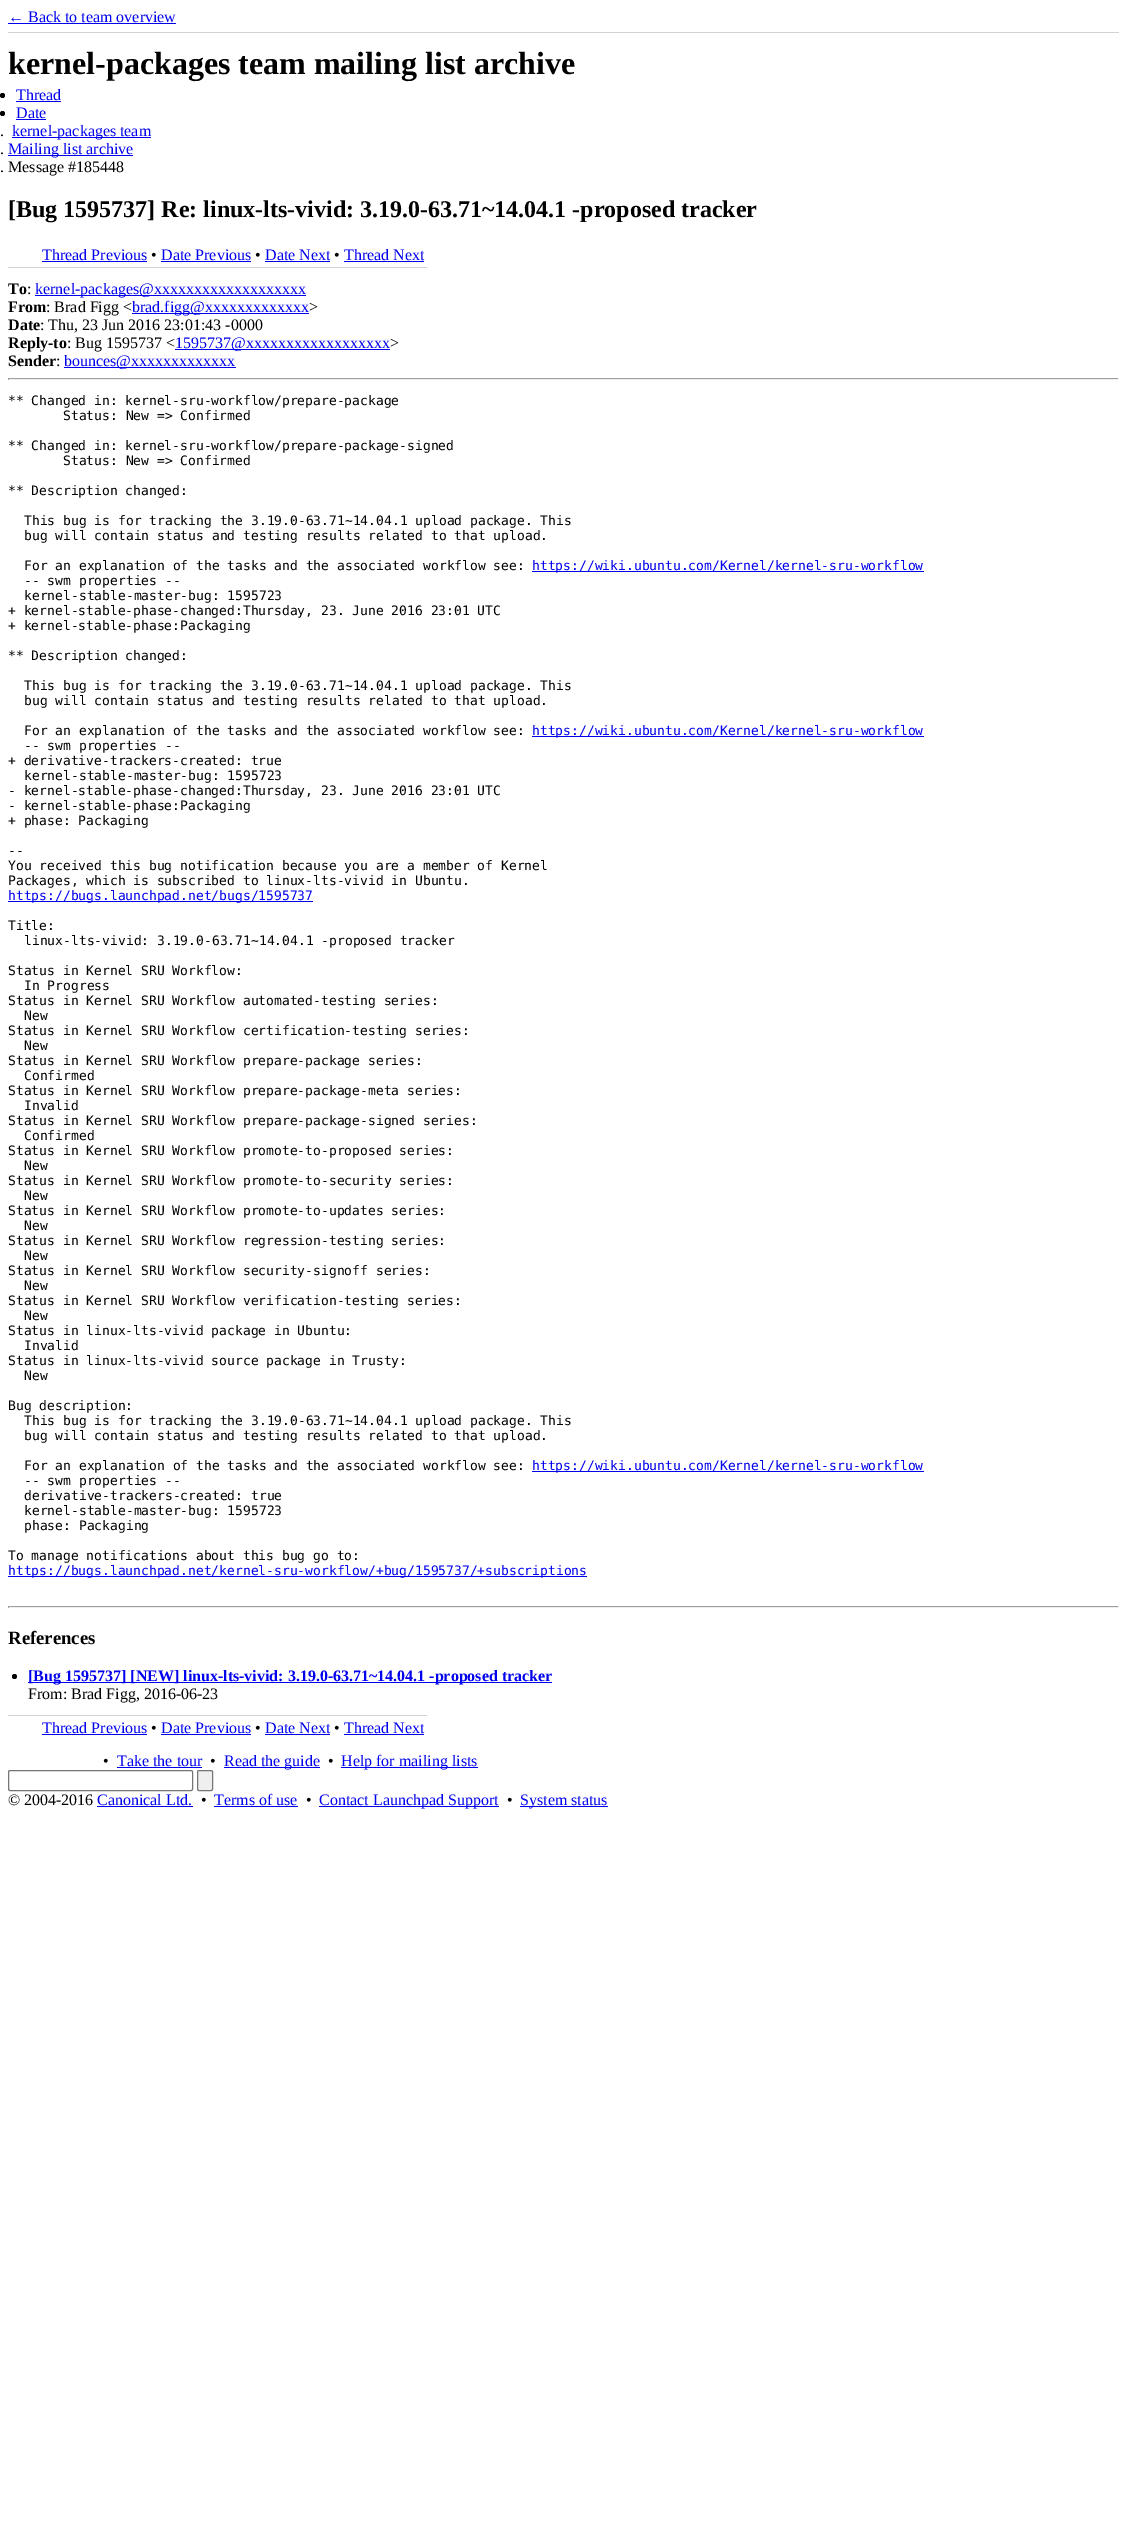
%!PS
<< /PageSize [1127 2522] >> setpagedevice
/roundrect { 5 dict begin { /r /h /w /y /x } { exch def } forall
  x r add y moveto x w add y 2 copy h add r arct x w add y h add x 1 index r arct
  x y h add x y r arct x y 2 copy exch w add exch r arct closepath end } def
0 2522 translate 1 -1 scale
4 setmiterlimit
1 setgray
0 0 1127 2522 rectfill
0.824 setgray
8 32 1111 1 rectfill
/LiberationSerif-Regular [16 0 0 -16 0 0] selectfont
0 0 0.933 setrgbcolor
8 22 moveto (← Back to team overview) show
8 23 168 1 rectfill
/LiberationSerif-Bold [32 0 0 -32 0 0] selectfont
0 setgray
8 74 moveto (kernel-packages team mailing list archive) show
newpath 2.5 95.5 2.5 0 360 arc closepath fill
/LiberationSerif-Regular [16 0 0 -16 0 0] selectfont
0 0 0.933 setrgbcolor
16 100 moveto (Thread) show
16 101 45 1 rectfill
0 setgray
newpath 2.5 113.5 2.5 0 360 arc closepath fill
0 0 0.933 setrgbcolor
16 118 moveto (Date) show
16 119 30 1 rectfill
0 setgray
0 136 moveto (.) show
0 0 0.933 setrgbcolor
12 137 139 1 rectfill
12 136 moveto (kernel-packages team) show
0 setgray
0 154 moveto (.) show
0 0 0.933 setrgbcolor
8 155 125 1 rectfill
8 154 moveto (Mailing list archive) show
0 setgray
0 172 moveto (. Message #185448) show
/LiberationSerif-Bold [24 0 0 -24 0 0] selectfont
8 217 moveto ([Bug 1595737] Re: linux-lts-vivid: 3.19.0-63.71~14.04.1 -proposed tracker) show
0.824 setgray
8 267 419 1 rectfill
/LiberationSerif-Regular [16 0 0 -16 0 0] selectfont
0 0 0.933 setrgbcolor
42 260 moveto (Thread Previous) show
42 261 105 1 rectfill
0 setgray
151 260 moveto (•) show
0 0 0.933 setrgbcolor
161 260 moveto (Date Previous) show
161 261 90 1 rectfill
0 setgray
255 260 moveto (•) show
0 0 0.933 setrgbcolor
265 260 moveto (Date Next) show
265 261 65 1 rectfill
0 setgray
334 260 moveto (•) show
0 0 0.933 setrgbcolor
344 260 moveto (Thread Next) show
344 261 80 1 rectfill
/LiberationSerif-Bold [16 0 0 -16 0 0] selectfont
0 setgray
8 294 moveto (To) show
/LiberationSerif-Regular [16 0 0 -16 0 0] selectfont
27 294 moveto (:) show
0 0 0.933 setrgbcolor
35 295 271 1 rectfill
35 294 moveto (kernel-packages@xxxxxxxxxxxxxxxxxxx) show
/LiberationSerif-Bold [16 0 0 -16 0 0] selectfont
0 setgray
8 312 moveto (From) show
/LiberationSerif-Regular [16 0 0 -16 0 0] selectfont
46 312 moveto (: Brad Figg <) show
0 0 0.933 setrgbcolor
132 313 177 1 rectfill
132 312 moveto (brad.figg@xxxxxxxxxxxxx) show
0 setgray
309 312 moveto (>) show
/LiberationSerif-Bold [16 0 0 -16 0 0] selectfont
8 330 moveto (Date) show
/LiberationSerif-Regular [16 0 0 -16 0 0] selectfont
40 330 moveto (: Thu, 23 Jun 2016 23:01:43 -0000) show
/LiberationSerif-Bold [16 0 0 -16 0 0] selectfont
8 348 moveto (Reply-to) show
/LiberationSerif-Regular [16 0 0 -16 0 0] selectfont
67 348 moveto (: Bug 1595737 <) show
0 0 0.933 setrgbcolor
175 349 215 1 rectfill
175 348 moveto (1595737@xxxxxxxxxxxxxxxxxx) show
0 setgray
390 348 moveto (>) show
/LiberationSerif-Bold [16 0 0 -16 0 0] selectfont
8 366 moveto (Sender) show
/LiberationSerif-Regular [16 0 0 -16 0 0] selectfont
56 366 moveto (:) show
0 0 0.933 setrgbcolor
64 367 172 1 rectfill
64 366 moveto (bounces@xxxxxxxxxxxxx) show
0.624 setgray
8 378 1111 1 rectfill
0.933 setgray
1118 378 1 2 rectfill
8 379 1111 1 rectfill
0.624 setgray
8 378 1 2 rectfill
/DejaVuSansMono-Regular [13 0 0 -13 0 0] selectfont
0 setgray
8 405 moveto (** Changed in: kernel-sru-workflow/prepare-package) show
63 420 moveto (Status: New => Confirmed) show
8 450 moveto (** Changed in: kernel-sru-workflow/prepare-package-signed) show
63 465 moveto (Status: New => Confirmed) show
8 495 moveto (** Description changed:) show
24 525 moveto (This bug is for tracking the 3.19.0-63.71~14.04.1 upload package. This) show
24 540 moveto (bug will contain status and testing results related to that upload.) show
24 570 moveto (For an explanation of the tasks and the associated workflow see:) show
0 0 0.933 setrgbcolor
532 571 392 1 rectfill
532 570 moveto (https://wiki.ubuntu.com/Kernel/kernel-sru-workflow) show
0 setgray
24 585 moveto (-- swm properties --) show
24 600 moveto (kernel-stable-master-bug: 1595723) show
8 615 moveto (+ kernel-stable-phase-changed:Thursday, 23. June 2016 23:01 UTC) show
8 630 moveto (+ kernel-stable-phase:Packaging) show
8 660 moveto (** Description changed:) show
24 690 moveto (This bug is for tracking the 3.19.0-63.71~14.04.1 upload package. This) show
24 705 moveto (bug will contain status and testing results related to that upload.) show
24 735 moveto (For an explanation of the tasks and the associated workflow see:) show
0 0 0.933 setrgbcolor
532 736 392 1 rectfill
532 735 moveto (https://wiki.ubuntu.com/Kernel/kernel-sru-workflow) show
0 setgray
24 750 moveto (-- swm properties --) show
8 765 moveto (+ derivative-trackers-created: true) show
24 780 moveto (kernel-stable-master-bug: 1595723) show
8 795 moveto (- kernel-stable-phase-changed:Thursday, 23. June 2016 23:01 UTC) show
8 810 moveto (- kernel-stable-phase:Packaging) show
8 825 moveto (+ phase: Packaging) show
8 855 moveto (--) show
8 870 moveto (You received this bug notification because you are a member of Kernel) show
8 885 moveto (Packages, which is subscribed to linux-lts-vivid in Ubuntu.) show
0 0 0.933 setrgbcolor
8 901 305 1 rectfill
8 900 moveto (https://bugs.launchpad.net/bugs/1595737) show
0 setgray
8 930 moveto (Title:) show
24 945 moveto (linux-lts-vivid: 3.19.0-63.71~14.04.1 -proposed tracker) show
8 975 moveto (Status in Kernel SRU Workflow:) show
24 990 moveto (In Progress) show
8 1005 moveto (Status in Kernel SRU Workflow automated-testing series:) show
24 1020 moveto (New) show
8 1035 moveto (Status in Kernel SRU Workflow certification-testing series:) show
24 1050 moveto (New) show
8 1065 moveto (Status in Kernel SRU Workflow prepare-package series:) show
24 1080 moveto (Confirmed) show
8 1095 moveto (Status in Kernel SRU Workflow prepare-package-meta series:) show
24 1110 moveto (Invalid) show
8 1125 moveto (Status in Kernel SRU Workflow prepare-package-signed series:) show
24 1140 moveto (Confirmed) show
8 1155 moveto (Status in Kernel SRU Workflow promote-to-proposed series:) show
24 1170 moveto (New) show
8 1185 moveto (Status in Kernel SRU Workflow promote-to-security series:) show
24 1200 moveto (New) show
8 1215 moveto (Status in Kernel SRU Workflow promote-to-updates series:) show
24 1230 moveto (New) show
8 1245 moveto (Status in Kernel SRU Workflow regression-testing series:) show
24 1260 moveto (New) show
8 1275 moveto (Status in Kernel SRU Workflow security-signoff series:) show
24 1290 moveto (New) show
8 1305 moveto (Status in Kernel SRU Workflow verification-testing series:) show
24 1320 moveto (New) show
8 1335 moveto (Status in linux-lts-vivid package in Ubuntu:) show
24 1350 moveto (Invalid) show
8 1365 moveto (Status in linux-lts-vivid source package in Trusty:) show
24 1380 moveto (New) show
8 1410 moveto (Bug description:) show
24 1425 moveto (This bug is for tracking the 3.19.0-63.71~14.04.1 upload package. This) show
24 1440 moveto (bug will contain status and testing results related to that upload.) show
24 1470 moveto (For an explanation of the tasks and the associated workflow see:) show
0 0 0.933 setrgbcolor
532 1471 392 1 rectfill
532 1470 moveto (https://wiki.ubuntu.com/Kernel/kernel-sru-workflow) show
0 setgray
24 1485 moveto (-- swm properties --) show
24 1500 moveto (derivative-trackers-created: true) show
24 1515 moveto (kernel-stable-master-bug: 1595723) show
24 1530 moveto (phase: Packaging) show
8 1560 moveto (To manage notifications about this bug go to:) show
0 0 0.933 setrgbcolor
8 1576 579 1 rectfill
8 1575 moveto (https://bugs.launchpad.net/kernel-sru-workflow/+bug/1595737/+subscriptions) show
0.624 setgray
8 1606 1111 1 rectfill
0.933 setgray
1118 1606 1 2 rectfill
8 1607 1111 1 rectfill
0.624 setgray
8 1606 1 2 rectfill
/LiberationSerif-Bold [18.75 0 0 -18.75 0 0] selectfont
0 setgray
8 1644 moveto (References) show
newpath 14.5 1676.5 2.5 0 360 arc closepath fill
0 0 0.933 setrgbcolor
28 1682 524 1 rectfill
/LiberationSerif-Bold [16 0 0 -16 0 0] selectfont
28 1681 moveto ([Bug 1595737] [NEW] linux-lts-vivid: 3.19.0-63.71~14.04.1 -proposed tracker) show
/LiberationSerif-Regular [16 0 0 -16 0 0] selectfont
0 setgray
28 1699 moveto (From: Brad Figg, 2016-06-23) show
0.824 setgray
8 1715 419 1 rectfill
0 0 0.933 setrgbcolor
42 1733 moveto (Thread Previous) show
42 1734 105 1 rectfill
0 setgray
151 1733 moveto (•) show
0 0 0.933 setrgbcolor
161 1733 moveto (Date Previous) show
161 1734 90 1 rectfill
0 setgray
255 1733 moveto (•) show
0 0 0.933 setrgbcolor
265 1733 moveto (Date Next) show
265 1734 65 1 rectfill
0 setgray
334 1733 moveto (•) show
0 0 0.933 setrgbcolor
344 1733 moveto (Thread Next) show
344 1734 80 1 rectfill
0 setgray
103 1766 moveto (•) show
0 0 0.933 setrgbcolor
117 1766 moveto (Take the tour) show
117 1767 85 1 rectfill
0 setgray
210 1766 moveto (•) show
0 0 0.933 setrgbcolor
224 1767 96 1 rectfill
224 1766 moveto (Read the guide) show
0 setgray
328 1766 moveto (•) show
0 0 0.933 setrgbcolor
341 1767 137 1 rectfill
341 1766 moveto (Help for mailing lists) show
0.463 setgray
8.5 1770.5 184 20 1.5 roundrect stroke
0.937 setgray
197.5 1770.5 15 20 1.5 roundrect gsave fill grestore
0.463 setgray
stroke
0 setgray
8 1805 moveto (© 2004-2016) show
0 0 0.933 setrgbcolor
97 1805 moveto (Canonical Ltd.) show
97 1806 96 1 rectfill
0 setgray
201 1805 moveto (•) show
0 0 0.933 setrgbcolor
214 1805 moveto (Terms of use) show
214 1806 84 1 rectfill
0 setgray
306 1805 moveto (•) show
0 0 0.933 setrgbcolor
319 1806 180 1 rectfill
319 1805 moveto (Contact Launchpad Support) show
0 setgray
507 1805 moveto (•) show
0 0 0.933 setrgbcolor
520 1806 88 1 rectfill
520 1805 moveto (System status) show
showpage
